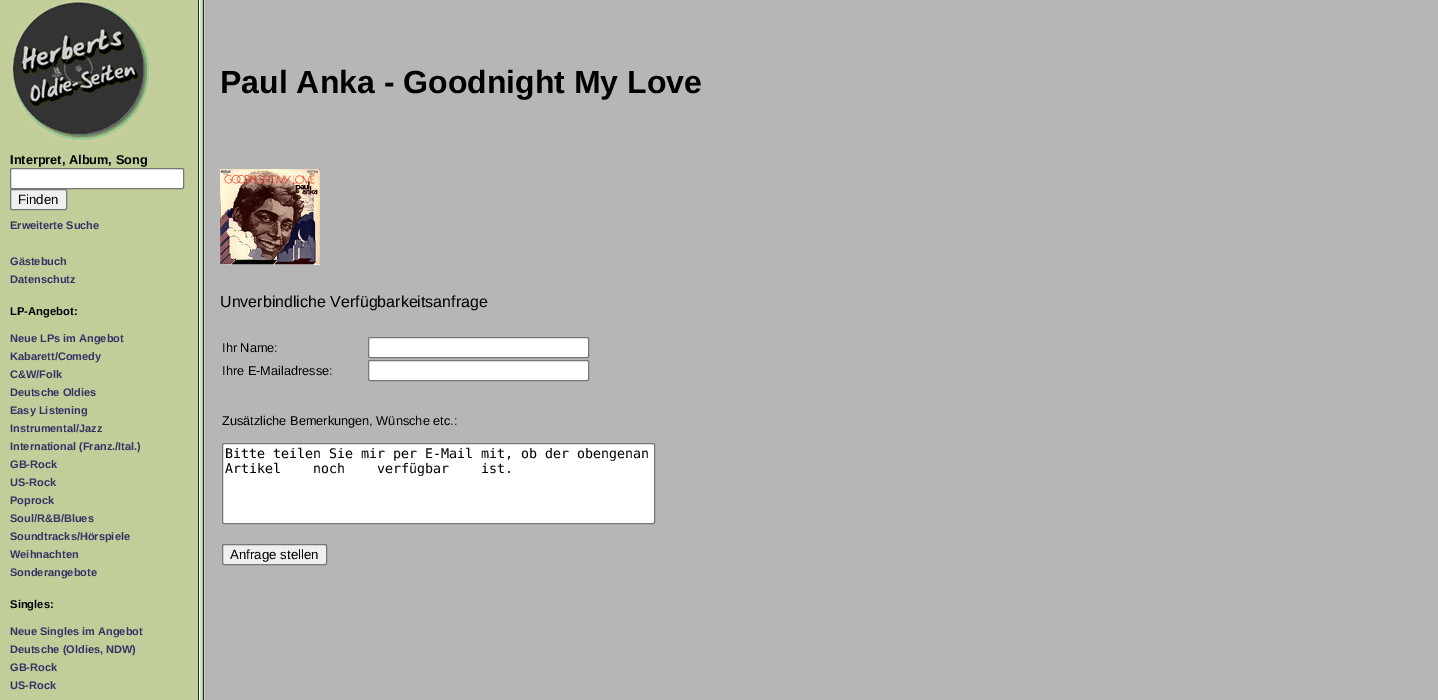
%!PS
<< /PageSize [1438 700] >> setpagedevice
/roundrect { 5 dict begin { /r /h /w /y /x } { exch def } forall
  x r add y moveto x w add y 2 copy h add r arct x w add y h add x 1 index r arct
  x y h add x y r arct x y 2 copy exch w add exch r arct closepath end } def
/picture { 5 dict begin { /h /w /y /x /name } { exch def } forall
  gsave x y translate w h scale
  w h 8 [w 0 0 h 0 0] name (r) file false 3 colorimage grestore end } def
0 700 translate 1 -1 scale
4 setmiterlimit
0.714 setgray
0 0 1438 700 rectfill
(img1.rgb) 0 0 205 700 picture
(img2.rgb) 10 0 140 144 picture
/LiberationSans-Bold [12.75 0 0 -12.75 0 0] selectfont
0 setgray
10 164 moveto (Interpret, Album, Song) show
1 setgray
10.5 168.5 173 20 1.5 roundrect gsave fill grestore
0.463 setgray
stroke
0.937 setgray
10.5 189.5 56 20 1.5 roundrect gsave fill grestore
0.463 setgray
stroke
/LiberationSans-Regular [13.3 0 0 -13.3 0 0] selectfont
0 setgray
18 204 moveto (Finden) show
/LiberationSans-Bold [11 0 0 -11 0 0] selectfont
0.2 0.2 0.4 setrgbcolor
10 229 moveto (Erweiterte Suche) show
10 265 moveto (Gästebuch) show
10 283 moveto (Datenschutz) show
/LiberationSans-Bold [11.25 0 0 -11.25 0 0] selectfont
0 setgray
10 315 moveto (LP-Angebot:) show
/LiberationSans-Bold [11 0 0 -11 0 0] selectfont
0.2 0.2 0.4 setrgbcolor
10 342 moveto (Neue LPs im Angebot) show
10 360 moveto (Kabarett/Comedy) show
10 378 moveto (C&W/Folk) show
10 396 moveto (Deutsche Oldies) show
10 414 moveto (Easy Listening) show
10 432 moveto (Instrumental/Jazz) show
10 450 moveto (International \(Franz./Ital.\)) show
10 468 moveto (GB-Rock) show
10 486 moveto (US-Rock) show
10 504 moveto (Poprock) show
10 522 moveto (Soul/R&B/Blues) show
10 540 moveto (Soundtracks/Hörspiele) show
10 558 moveto (Weihnachten) show
10 576 moveto (Sonderangebote) show
/LiberationSans-Bold [11.25 0 0 -11.25 0 0] selectfont
0 setgray
10 608 moveto (Singles:) show
/LiberationSans-Bold [11 0 0 -11 0 0] selectfont
0.2 0.2 0.4 setrgbcolor
10 635 moveto (Neue Singles im Angebot) show
10 653 moveto (Deutsche \(Oldies, NDW\)) show
10 671 moveto (GB-Rock) show
10 689 moveto (US-Rock) show
/LiberationSans-Bold [32 0 0 -32 0 0] selectfont
0 setgray
220 93 moveto (Paul Anka - Goodnight My Love) show
(img3.rgb) 220 169 100 96 picture
/LiberationSans-Regular [16 0 0 -16 0 0] selectfont
220 307 moveto (Unverbindliche Verfügbarkeitsanfrage) show
/LiberationSans-Regular [12.75 0 0 -12.75 0 0] selectfont
222 352 moveto (Ihr Name:) show
1 setgray
368.5 337.5 220 20 1.5 roundrect gsave fill grestore
0.463 setgray
stroke
0 setgray
222 375 moveto (Ihre E-Mailadresse:) show
1 setgray
368.5 360.5 220 20 1.5 roundrect gsave fill grestore
0.463 setgray
stroke
0 setgray
222 425 moveto (Zusätzliche Bemerkungen, Wünsche etc.:) show
1 setgray
222.5 443.5 432 80 1.5 roundrect gsave fill grestore
0.463 setgray
stroke
/DejaVuSansMono-Regular [13.3 0 0 -13.3 0 0] selectfont
0 setgray
225 458 moveto (Bitte teilen Sie mir per E-Mail mit, ob der obengenan) show
225 473 moveto 24 0 32 (Artikel noch verfügbar ist.) widthshow
0.937 setgray
222.5 544.5 104 20 1.5 roundrect gsave fill grestore
0.463 setgray
stroke
/LiberationSans-Regular [13.3 0 0 -13.3 0 0] selectfont
0 setgray
230 559 moveto (Anfrage stellen) show
showpage
